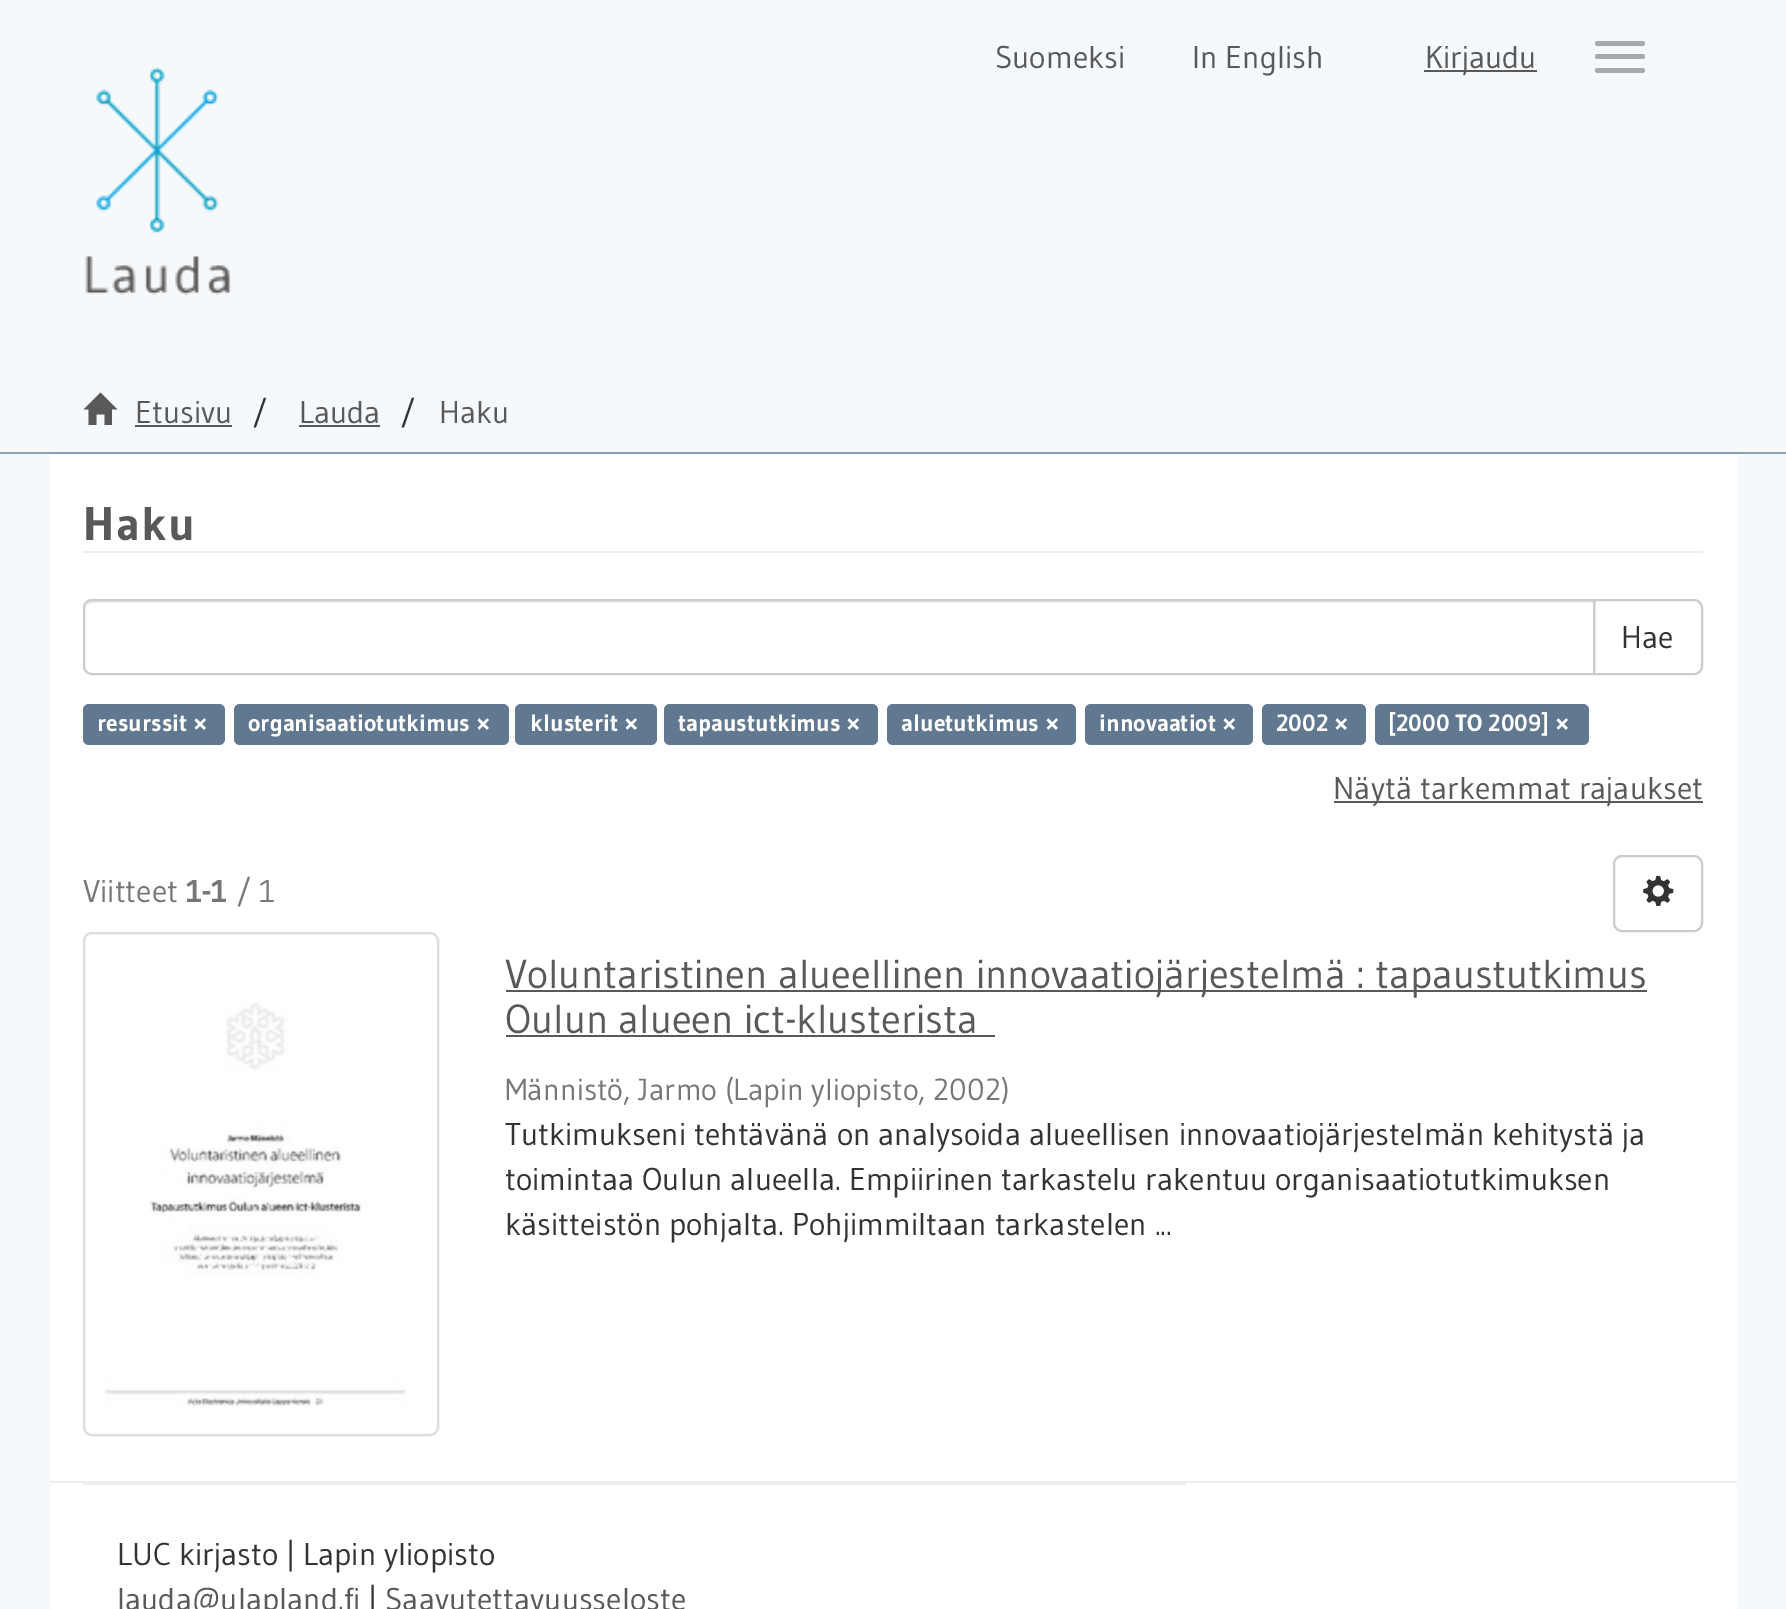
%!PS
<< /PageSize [1786 1609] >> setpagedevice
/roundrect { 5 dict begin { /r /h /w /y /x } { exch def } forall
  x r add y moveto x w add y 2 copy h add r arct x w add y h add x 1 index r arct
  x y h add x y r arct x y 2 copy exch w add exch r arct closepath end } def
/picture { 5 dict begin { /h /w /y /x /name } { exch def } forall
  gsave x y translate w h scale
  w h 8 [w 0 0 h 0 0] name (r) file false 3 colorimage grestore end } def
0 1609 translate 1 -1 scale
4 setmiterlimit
0.965 0.976 0.988 setrgbcolor
0 0 1786 1609 rectfill
/Gudea-Regular [31.5 0 0 -31.5 0 0] selectfont
0.349 setgray
995 68 moveto (Suomeksi) show
1192 68 moveto (In English) show
1424 70 113 2 rectfill
1425 68 moveto (Kirjaudu) show
0.659 0.663 0.671 setrgbcolor
1595 41 50 5 2.5 roundrect fill
1595 54 50 5 2.5 roundrect fill
1595 68 50 5 2.5 roundrect fill
(img1.rgb) 85 67 146 229 picture
0.545 0.62 0.698 setrgbcolor
0 452 1786 2 rectfill
0.349 setgray
newpath 83.5 409.5 moveto 100.5 392.5 lineto 117.5 409.5 lineto 112 409.5 lineto 112 425 lineto 104.5 425 lineto 104.5 414.5 lineto 96.5 414.5 lineto 96.5 425 lineto 88.5 425 lineto 88.5 409.5 lineto closepath fill
135 423 moveto (Etusivu) show
135 425 97 2 rectfill
0.2 setgray
252 423 moveto (/) show
0.349 setgray
299 423 moveto (Lauda) show
299 425 81 2 rectfill
0.2 setgray
400 423 moveto (/) show
0.349 setgray
439 423 moveto (Haku) show
1 setgray
50 455 1687 1154 rectfill
0.933 setgray
83 551 1620 2 rectfill
/Gudea-Bold [47 0 0 -47 0 0] selectfont
0.349 setgray
83 540 moveto 1.5 0 (Haku) ashow
0.8 setgray
2 setlinewidth
newpath 1594 600 moveto 1694 600 lineto 1698.5 600 1702 603.5 1702 608 curveto 1702 666 lineto 1702 670.5 1698.5 674 1694 674 curveto 1594 674 lineto closepath stroke
1 setgray
newpath 92 599 moveto 1595 599 lineto 1595 675 lineto 92 675 lineto 87 675 83 671 83 666 curveto 83 608 lineto 83 603 87 599 92 599 curveto closepath fill
0.925 setgray
newpath 92 603 moveto 1593 603 lineto 1593 601 lineto 93 601 lineto 88 601 86 606 86 610 curveto 86 606 89 603 92 603 curveto closepath fill
0.8 setgray
newpath 92 600 moveto 1594 600 lineto 1594 674 lineto 92 674 lineto 87.5 674 84 670.5 84 666 curveto 84 608 lineto 84 603.5 87.5 600 92 600 curveto closepath stroke
/Gudea-Regular [31.5 0 0 -31.5 0 0] selectfont
0.2 setgray
1621 648 moveto (Hae) show
0.376 0.471 0.565 setrgbcolor
83 704 142 41 6 roundrect fill
/Gudea-Bold [23.6 0 0 -23.6 0 0] selectfont
1 setgray
97 731 moveto (resurssit ×) show
0.376 0.471 0.565 setrgbcolor
234 704 275 41 6 roundrect fill
1 setgray
248 731 moveto (organisaatiotutkimus ×) show
0.376 0.471 0.565 setrgbcolor
515 704 142 41 6 roundrect fill
1 setgray
530 731 moveto (klusterit ×) show
0.376 0.471 0.565 setrgbcolor
664 704 214 41 6 roundrect fill
1 setgray
678 731 moveto (tapaustutkimus ×) show
0.376 0.471 0.565 setrgbcolor
887 704 189 41 6 roundrect fill
1 setgray
901 731 moveto (aluetutkimus ×) show
0.376 0.471 0.565 setrgbcolor
1085 704 168 41 6 roundrect fill
1 setgray
1099 731 moveto (innovaatiot ×) show
0.376 0.471 0.565 setrgbcolor
1262 704 104 41 6 roundrect fill
1 setgray
1276 731 moveto (2002 ×) show
0.376 0.471 0.565 setrgbcolor
1375 704 214 41 6 roundrect fill
1 setgray
1388 731 moveto ([2000 TO 2009] ×) show
0.349 setgray
1334 801 369 2 rectfill
/Gudea-Regular [31.5 0 0 -31.5 0 0] selectfont
1333 799 moveto (Näytä tarkemmat rajaukset) show
0.467 setgray
83 902 moveto (Viitteet) show
/Gudea-Bold [31.5 0 0 -31.5 0 0] selectfont
186 902 moveto (1-1) show
/Gudea-Regular [31.5 0 0 -31.5 0 0] selectfont
236 902 moveto (/ 1) show
0.8 setgray
1614 856 88 75 8 roundrect stroke
(img2.rgb) 1643 875 31 31 picture
0.867 setgray
84 933 354 502 8 roundrect stroke
(img3.rgb) 104 1002 302 404 picture
0.349 setgray
506 990 1141 2 rectfill
/Gudea-Regular [40.5 0 0 -40.5 0 0] selectfont
505 988 moveto (Voluntaristinen alueellinen innovaatiojärjestelmä : tapaustutkimus) show
505 1033 moveto (Oulun alueen ict-klusterista) show
506 1035 489 2 rectfill
/Gudea-Regular [30.4 0 0 -30.4 0 0] selectfont
0.467 setgray
505 1100 moveto (Männistö, Jarmo \(Lapin yliopisto, 2002\)) show
/Gudea-Regular [31.5 0 0 -31.5 0 0] selectfont
0.2 setgray
505 1145 moveto (Tutkimukseni tehtävänä on analysoida alueellisen innovaatiojärjestelmän kehitystä ja) show
505 1190 moveto (toimintaa Oulun alueella. Empiirinen tarkastelu rakentuu organisaatiotutkimuksen) show
505 1235 moveto (käsitteistön pohjalta. Pohjimmiltaan tarkastelen ...) show
0.933 setgray
50 1481 1687 2 rectfill
83 1483 1103 2 rectfill
0.2 setgray
117 1565 moveto (LUC kirjasto | Lapin yliopisto) show
0.349 setgray
117 1610 moveto (lauda@ulapland.fi) show
0.2 setgray
368 1610 moveto (|) show
0.349 setgray
385 1610 moveto (Saavutettavuusseloste) show
showpage
